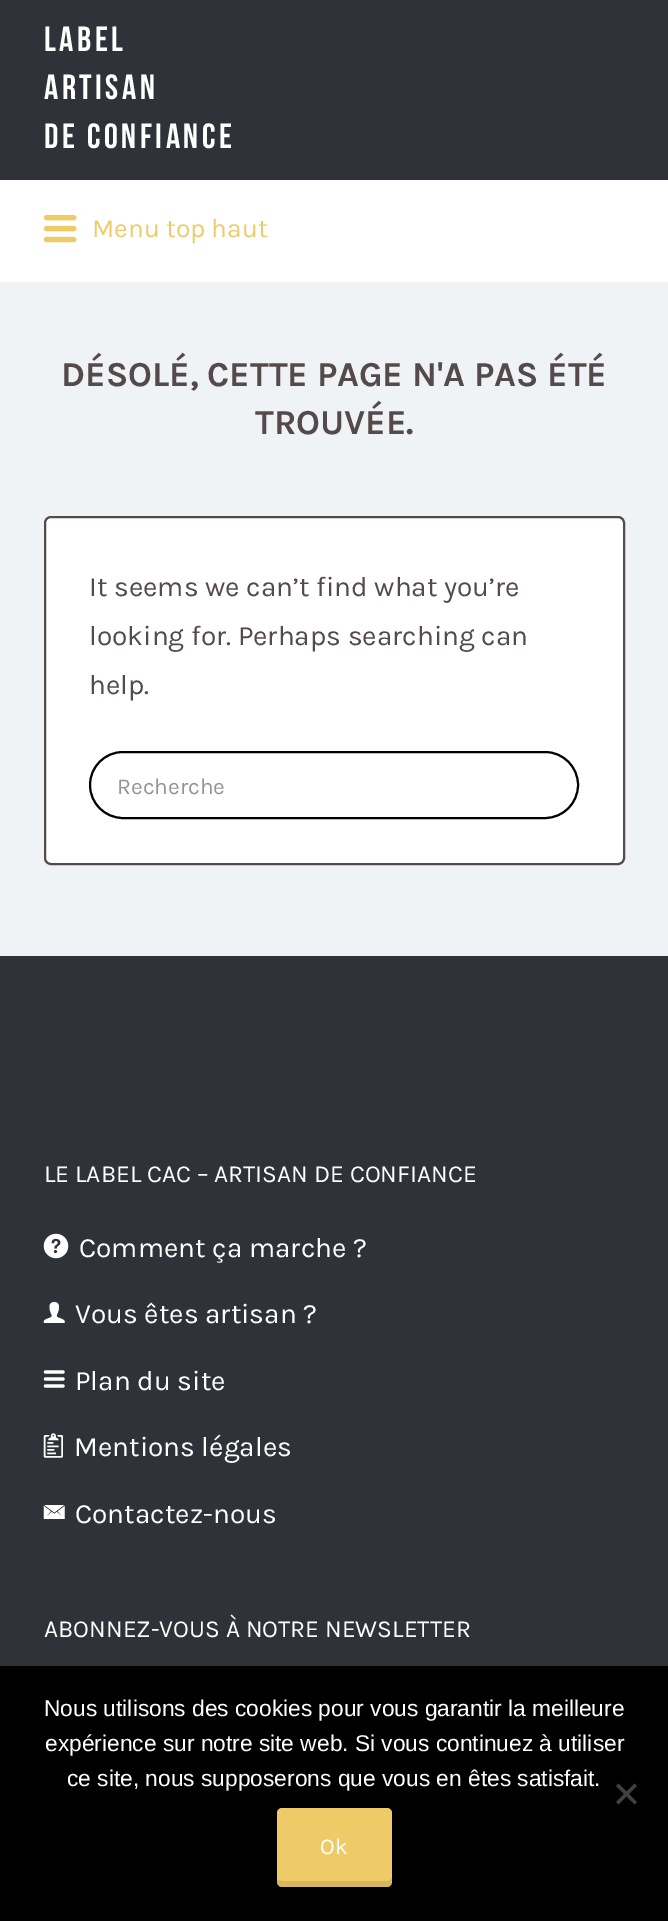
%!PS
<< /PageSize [668 1921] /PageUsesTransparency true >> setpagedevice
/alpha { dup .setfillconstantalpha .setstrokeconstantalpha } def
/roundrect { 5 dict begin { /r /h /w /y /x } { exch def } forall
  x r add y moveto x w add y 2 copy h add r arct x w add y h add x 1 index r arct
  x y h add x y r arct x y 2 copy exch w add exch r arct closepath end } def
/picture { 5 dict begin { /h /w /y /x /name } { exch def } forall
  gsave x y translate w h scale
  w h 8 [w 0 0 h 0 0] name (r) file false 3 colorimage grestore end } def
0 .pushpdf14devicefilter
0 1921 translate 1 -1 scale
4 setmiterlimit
0.941 0.953 0.965 setrgbcolor
0 0 668 1921 rectfill
0.184 0.2 0.224 setrgbcolor
0 0 668 180 rectfill
/BebasNeue-Regular [35 0 0 -35 0 0] selectfont
1 setgray
44 51 moveto 3.5 0 (LABEL) ashow
44 99 moveto 3.5 0 (ARTISAN) ashow
44 148 moveto 3.5 0 (DE CONFIANCE) ashow
0 180 668 102 rectfill
(img1.rgb) 43 214 34 29 picture
/Karla-Regular [26.25 0 0 -26.25 0 0] selectfont
0.937 0.796 0.404 setrgbcolor
92 237 moveto (Menu top haut) show
/Karla-Bold [35 0 0 -35 0 0] selectfont
0.329 0.29 0.29 setrgbcolor
61 386 moveto (DÉSOLÉ, CETTE PAGE N'A PAS ÉTÉ) show
255 434 moveto (TROUVÉE.) show
1 setgray
45 517 579 347 6 roundrect gsave fill grestore
0.329 0.29 0.29 setrgbcolor
2 setlinewidth
stroke
/Karla-Regular [28 0 0 -28 0 0] selectfont
89 596 moveto (It seems we can’t find what you’re) show
89 645 moveto (looking for. Perhaps searching can) show
89 694 moveto (help.) show
0 setgray
90 752 488 66 33 roundrect stroke
/Karla-Regular [22.75 0 0 -22.75 0 0] selectfont
0.576 setgray
117 794 moveto (Recherche) show
0.184 0.2 0.224 setrgbcolor
0 956 668 710 rectfill
/Karla-Regular [24.5 0 0 -24.5 0 0] selectfont
1 setgray
44 1182 moveto (LE LABEL CAC – ARTISAN DE CONFIANCE) show
(img2.rgb) 43 1233 26 26 picture
/Karla-Regular [28 0 0 -28 0 0] selectfont
79 1257 moveto (Comment ça marche ?) show
(img3.rgb) 43 1302 22 21 picture
75 1323 moveto (Vous êtes artisan ?) show
(img4.rgb) 43 1370 22 18 picture
75 1390 moveto (Plan du site) show
(img5.rgb) 43 1433 20 25 picture
74 1456 moveto (Mentions légales) show
(img6.rgb) 43 1505 22 14 picture
75 1523 moveto (Contactez-nous) show
/Karla-Regular [24.5 0 0 -24.5 0 0] selectfont
44 1637 moveto (ABONNEZ-VOUS À NOTRE NEWSLETTER) show
0 setgray
0 1666 668 255 rectfill
/LiberationSans-Regular [22.75 0 0 -22.75 0 0] selectfont
1 setgray
44 1716 moveto (Nous utilisons des cookies pour vous garantir la meilleure) show
45 1751 moveto (expérience sur notre site web. Si vous continuez à utiliser) show
67 1786 moveto (ce site, nous supposerons que vous en êtes satisfait.) show
0.251 setgray
newpath 634.5 1783.5 moveto 637 1786 lineto 618.5 1804.5 lineto 616 1802 lineto closepath fill
newpath 616 1786 moveto 618.5 1783.5 lineto 637 1802 lineto 634.5 1804.5 lineto closepath fill
0.937 0.796 0.404 setrgbcolor
277 1808 115 79 5 roundrect fill
0.1 alpha
0 setgray
newpath 277 1879 moveto 277 1882 lineto 277 1885 279 1887 282 1887 curveto 387 1887 lineto 390 1887 392 1885 392 1882 curveto 392 1876 lineto 392 1879 390 1881 387 1881 curveto 282 1881 lineto 280 1881 278 1880 277 1879 curveto closepath fill
/Karla-Regular [22.75 0 0 -22.75 0 0] selectfont
1 alpha
1 setgray
320 1854 moveto (Ok) show
.poppdf14devicefilter showpage
